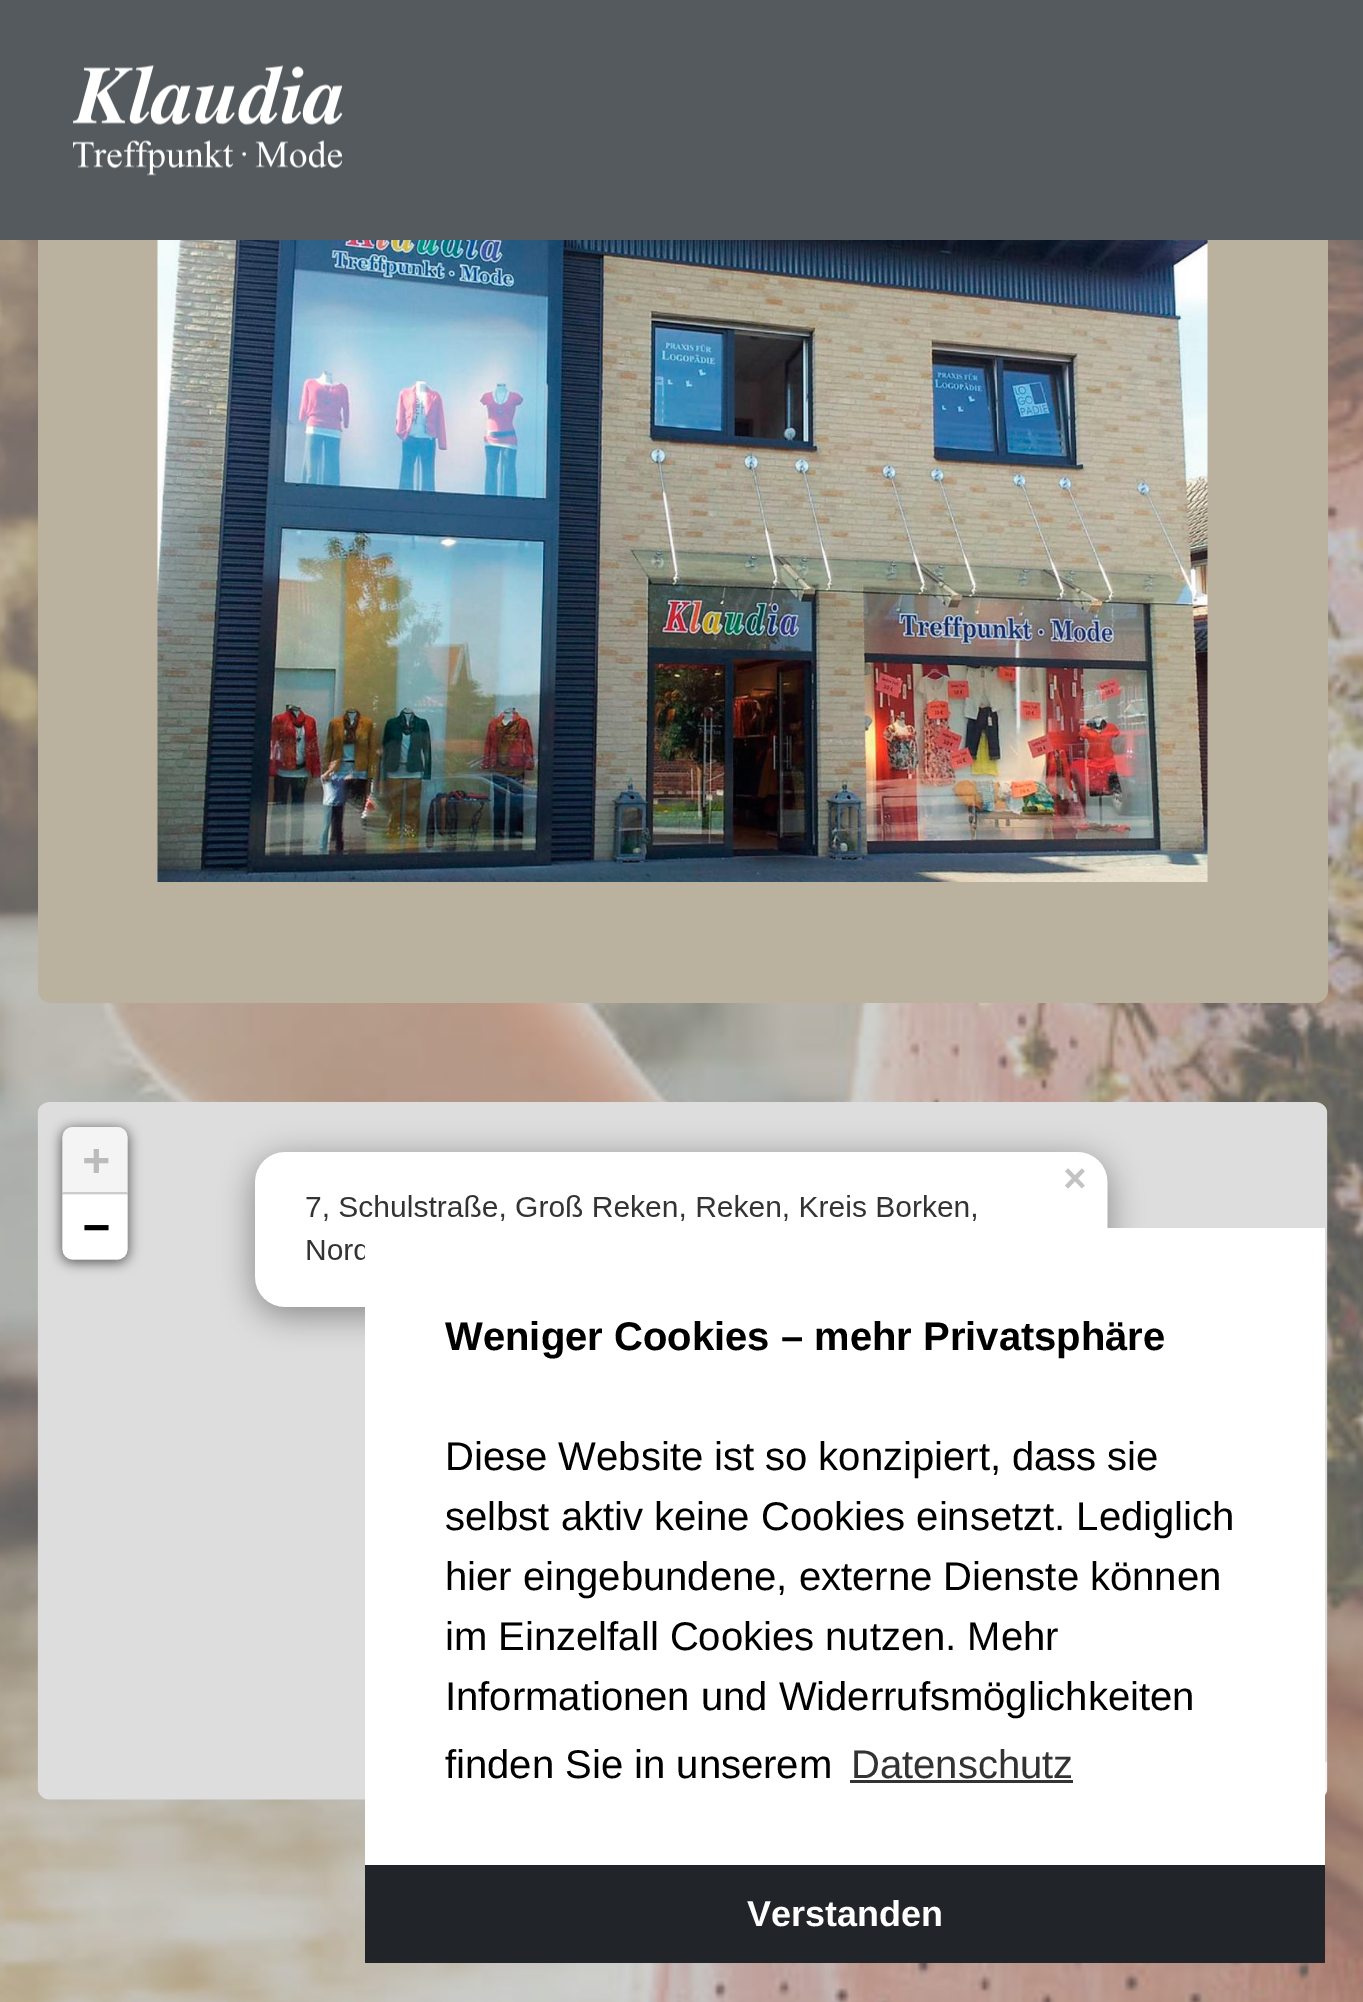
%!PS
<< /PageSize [1363 2002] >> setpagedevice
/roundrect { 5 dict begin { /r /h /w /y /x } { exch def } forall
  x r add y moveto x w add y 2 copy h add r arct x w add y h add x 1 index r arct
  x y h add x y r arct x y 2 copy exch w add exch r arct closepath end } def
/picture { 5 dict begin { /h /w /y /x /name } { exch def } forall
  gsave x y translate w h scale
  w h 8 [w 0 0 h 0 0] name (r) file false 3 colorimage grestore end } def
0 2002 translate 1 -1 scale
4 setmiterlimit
1 setgray
0 0 1363 2002 rectfill
(img1.rgb) 0 240 1363 1762 picture
0.733 0.694 0.624 setrgbcolor
38 -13 1290 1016 13 roundrect fill
(img2.rgb) 157 240 1051 642 picture
(img3.rgb) 37 1102 1291 698 picture
0.333 0.353 0.369 setrgbcolor
0 0 1363 240 rectfill
(img4.rgb) 73 65 270 111 picture
1 setgray
365 1228 960 637 rectfill
/LiberationSans-Bold [40 0 0 -40 0 0] selectfont
0 setgray
445 1350 moveto (Weniger Cookies – mehr Privatsphäre) show
/LiberationSans-Regular [40 0 0 -40 0 0] selectfont
445 1470 moveto (Diese Website ist so konzipiert, dass sie) show
445 1530 moveto (selbst aktiv keine Cookies einsetzt. Lediglich) show
445 1590 moveto (hier eingebundene, externe Dienste können) show
445 1650 moveto (im Einzelfall Cookies nutzen. Mehr) show
445 1710 moveto (Informationen und Widerrufsmöglichkeiten) show
445 1778 moveto (finden Sie in unserem) show
0.2 setgray
851 1778 moveto (Datenschutz) show
850 1780 223 3 rectfill
0.129 0.145 0.161 setrgbcolor
365 1865 960 98 rectfill
/LiberationSans-Bold [36 0 0 -36 0 0] selectfont
1 setgray
747 1926 moveto (Verstanden) show
showpage
